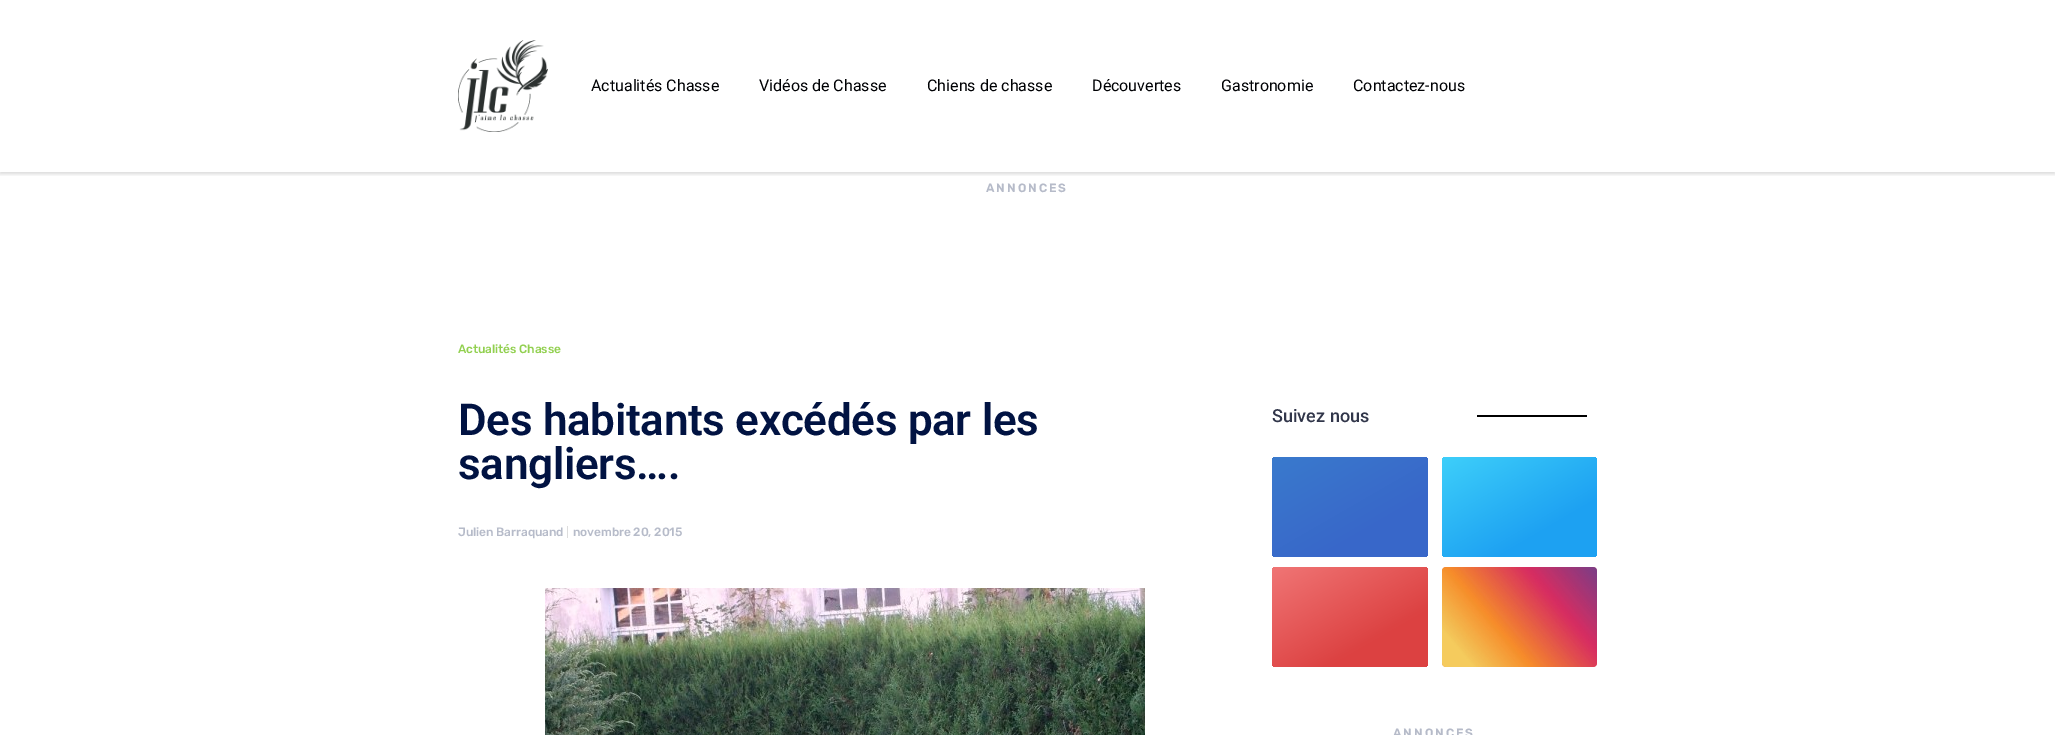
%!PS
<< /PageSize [2055 735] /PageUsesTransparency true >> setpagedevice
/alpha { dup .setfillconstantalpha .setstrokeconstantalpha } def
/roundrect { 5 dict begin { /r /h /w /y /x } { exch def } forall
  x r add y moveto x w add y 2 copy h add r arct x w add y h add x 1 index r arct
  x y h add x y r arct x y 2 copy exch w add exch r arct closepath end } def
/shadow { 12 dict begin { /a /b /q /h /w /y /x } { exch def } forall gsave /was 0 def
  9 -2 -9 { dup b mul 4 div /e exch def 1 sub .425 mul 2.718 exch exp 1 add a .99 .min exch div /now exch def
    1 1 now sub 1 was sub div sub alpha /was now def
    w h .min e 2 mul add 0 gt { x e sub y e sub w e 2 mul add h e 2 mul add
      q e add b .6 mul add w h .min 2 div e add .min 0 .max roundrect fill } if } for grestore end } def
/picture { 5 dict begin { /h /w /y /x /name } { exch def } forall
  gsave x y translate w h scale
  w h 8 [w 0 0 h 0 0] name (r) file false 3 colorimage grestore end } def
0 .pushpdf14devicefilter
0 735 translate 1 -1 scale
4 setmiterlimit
1 setgray
0 0 2055 735 rectfill
gsave
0 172 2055 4 rectclip
0 setgray
0 2 2055 172 0 2 0.15 shadow
grestore
(img1.rgb) 458 40 90 92 picture
/Roboto-Regular [16 0 0 -16 0 0] selectfont
0 0.004 0.016 setrgbcolor
591 91 moveto (Actualités Chasse) show
759 91 moveto (Vidéos de Chasse) show
927 91 moveto (Chiens de chasse) show
1092 91 moveto (Découvertes) show
1221 91 moveto (Gastronomie) show
1353 91 moveto (Contactez-nous) show
/Rubik-SemiBold [12 0 0 -12 0 0] selectfont
0.714 0.733 0.788 setrgbcolor
986 192 moveto 2 0 (ANNONCES) ashow
/Rubik-Medium [12 0 0 -12 0 0] selectfont
0.573 0.816 0.314 setrgbcolor
458 353 moveto -0.1 0 (Actualités Chasse) ashow
/Roboto-SemiBold [44 0 0 -44 0 0] selectfont
0.004 0.075 0.259 setrgbcolor
458 435 moveto -0.3 0 (Des habitants excédés par les) ashow
458 479 moveto -0.3 0 (sangliers….) ashow
/Rubik-Medium [12 0 0 -12 0 0] selectfont
0.714 0.733 0.788 setrgbcolor
458 536 moveto -0.1 0 (Julien Barraquand) ashow
0.867 setgray
567 526 1 12 rectfill
0.714 0.733 0.788 setrgbcolor
573 536 moveto -0.1 0 (novembre 20, 2015) ashow
(img2.rgb) 545 588 600 147 picture
/Roboto-Medium [18 0 0 -18 0 0] selectfont
0.192 0.212 0.29 setrgbcolor
1272 422 moveto (Suivez nous) show
0 setgray
1477 415 110 2 rectfill
gsave 1272 457 156 100 4 roundrect clip newpath
<< /ShadingType 2 /ColorSpace /DeviceRGB /Coords [1309 436 1391 578] /Extend [true true] /Function << /FunctionType 3 /Domain [0 1] /Functions [<< /FunctionType 2 /Domain [0 1] /C0 [0.227 0.478 0.804] /C1 [0.22 0.404 0.788] /N 1 >> << /FunctionType 2 /Domain [0 1] /C0 [0.22 0.404 0.788] /C1 [0.22 0.404 0.788] /N 1 >>] /Bounds [0.7] /Encode [0 1 0 1] >> >> shfill grestore
gsave 1442 457 155 100 4 roundrect clip newpath
<< /ShadingType 2 /ColorSpace /DeviceRGB /Coords [1478 436 1561 578] /Extend [true true] /Function << /FunctionType 3 /Domain [0 1] /Functions [<< /FunctionType 2 /Domain [0 1] /C0 [0.243 0.812 0.98] /C1 [0.114 0.631 0.949] /N 1 >> << /FunctionType 2 /Domain [0 1] /C0 [0.114 0.631 0.949] /C1 [0.114 0.631 0.949] /N 1 >>] /Bounds [0.7] /Encode [0 1 0 1] >> >> shfill grestore
gsave 1272 567 156 100 4 roundrect clip newpath
<< /ShadingType 2 /ColorSpace /DeviceRGB /Coords [1309 546 1391 688] /Extend [true true] /Function << /FunctionType 3 /Domain [0 1] /Functions [<< /FunctionType 2 /Domain [0 1] /C0 [0.941 0.459 0.459] /C1 [0.863 0.255 0.255] /N 1 >> << /FunctionType 2 /Domain [0 1] /C0 [0.863 0.255 0.255] /C1 [0.863 0.255 0.255] /N 1 >>] /Bounds [0.7] /Encode [0 1 0 1] >> >> shfill grestore
(img3.rgb) 1442 567 155 100 picture
/Rubik-SemiBold [12 0 0 -12 0 0] selectfont
0.714 0.733 0.788 setrgbcolor
1393 737 moveto 2 0 (ANNONCES) ashow
.poppdf14devicefilter showpage
